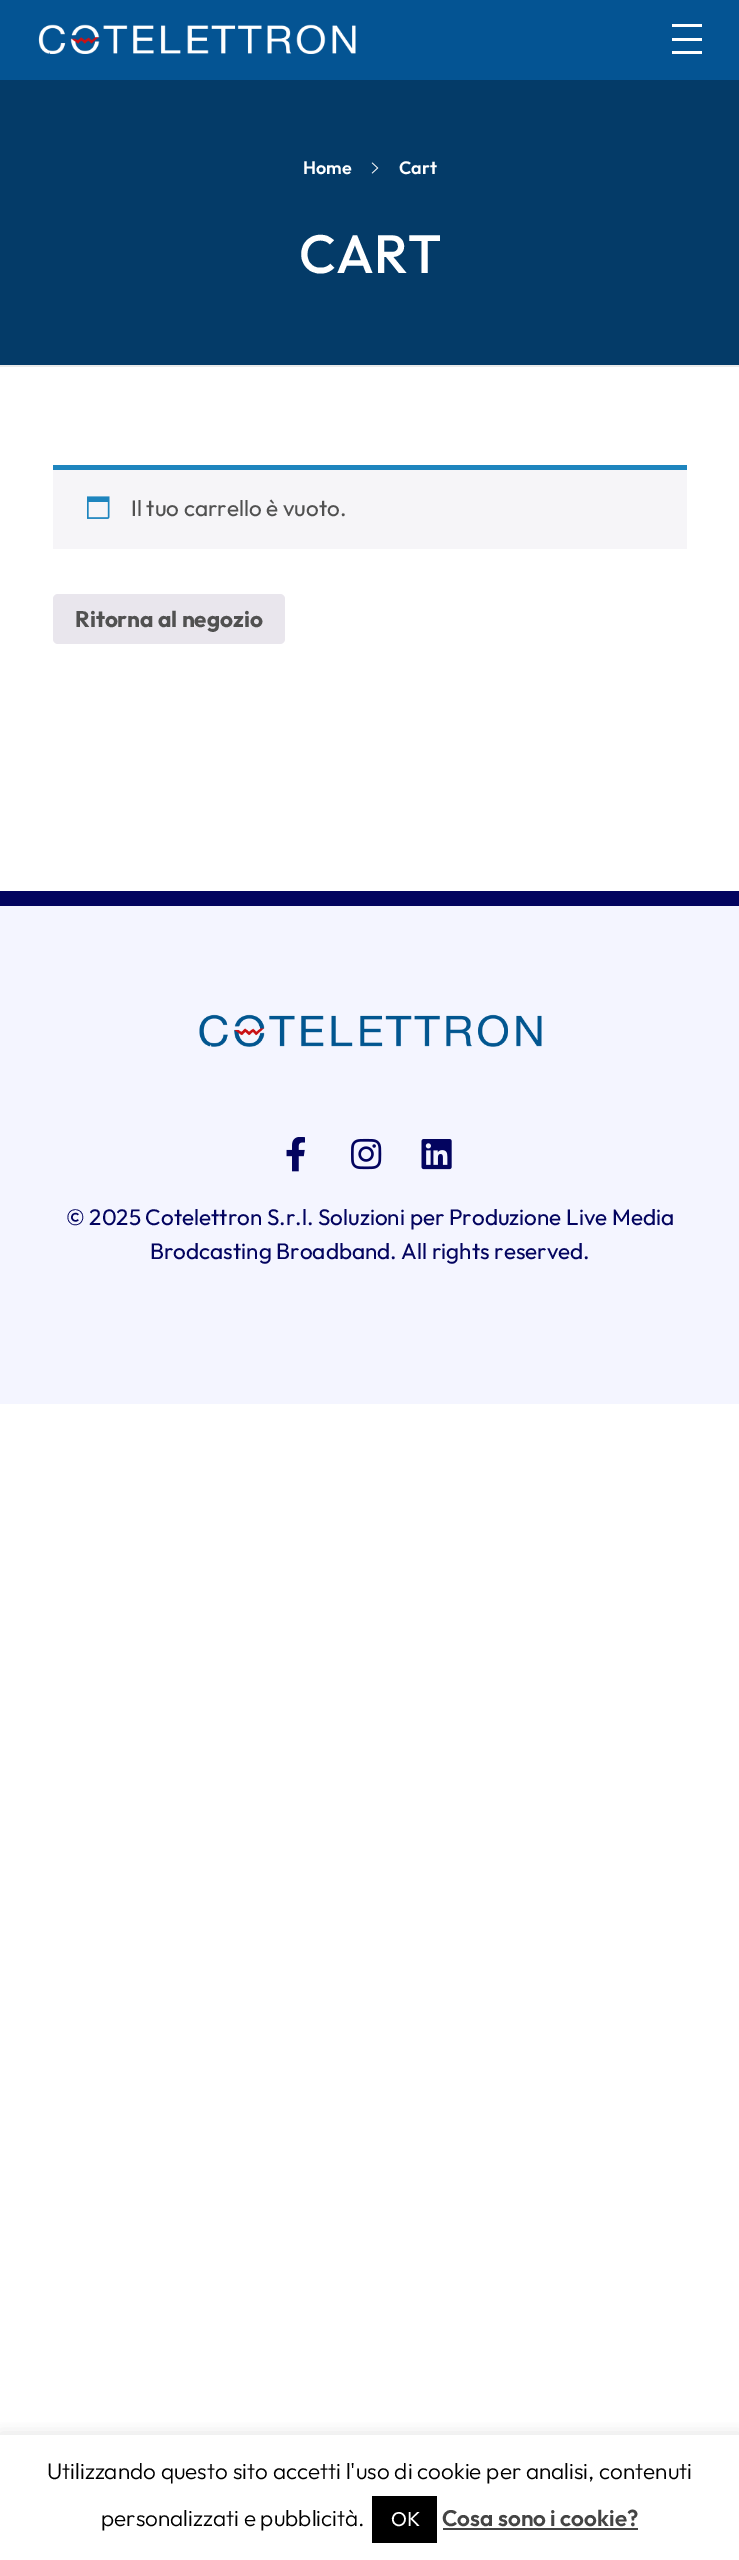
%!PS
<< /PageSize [739 2560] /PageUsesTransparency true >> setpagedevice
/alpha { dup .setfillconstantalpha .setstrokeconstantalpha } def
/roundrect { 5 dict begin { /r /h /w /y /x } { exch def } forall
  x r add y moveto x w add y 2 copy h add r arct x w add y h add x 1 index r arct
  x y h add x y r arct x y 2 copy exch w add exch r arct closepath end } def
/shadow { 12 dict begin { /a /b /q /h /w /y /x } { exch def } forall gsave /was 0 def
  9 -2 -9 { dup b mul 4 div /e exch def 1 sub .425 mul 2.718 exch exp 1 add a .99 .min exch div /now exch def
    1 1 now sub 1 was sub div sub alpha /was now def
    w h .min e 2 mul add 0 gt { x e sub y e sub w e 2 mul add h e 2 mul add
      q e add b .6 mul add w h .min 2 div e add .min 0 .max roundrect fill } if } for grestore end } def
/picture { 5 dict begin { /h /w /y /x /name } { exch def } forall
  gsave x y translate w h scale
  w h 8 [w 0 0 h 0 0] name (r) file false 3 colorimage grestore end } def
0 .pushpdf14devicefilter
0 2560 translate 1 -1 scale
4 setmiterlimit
1 setgray
0 0 739 2560 rectfill
0.016 0.329 0.576 setrgbcolor
0 0 739 80 rectfill
(img1.rgb) 38 24 318 30 picture
1 setgray
672 24 30 3 rectfill
672 38 30 3 rectfill
672 51 30 3 rectfill
0.016 0.231 0.408 setrgbcolor
0 80 739 285 rectfill
0.918 setgray
0 365 739 2 rectfill
/Outfit-SemiBold [18 0 0 -18 0 0] selectfont
1 setgray
303 174 moveto (Home) show
(img2.rgb) 371 162 8 12 picture
399 174 moveto (Cart) show
/Outfit-Medium [54 0 0 -54 0 0] selectfont
299 273 moveto (CART) show
0.965 0.961 0.973 setrgbcolor
53 470 634 79 rectfill
0.118 0.522 0.745 setrgbcolor
53 465 634 5 rectfill
(img3.rgb) 87 496 23 23 picture
/Outfit-Regular [22.5 0 0 -22.5 0 0] selectfont
0.318 setgray
131 516 moveto (Il tuo carrello è vuoto.) show
0.914 0.902 0.929 setrgbcolor
53 594 232 50 5 roundrect fill
/Outfit-Bold [22.5 0 0 -22.5 0 0] selectfont
0.318 setgray
75 627 moveto (Ritorna al negozio) show
0.957 0.961 1 setrgbcolor
0 906 739 498 rectfill
0.012 0.016 0.373 setrgbcolor
0 891 739 15 rectfill
(img4.rgb) 199 1014 343 33 picture
(img5.rgb) 286 1137 19 35 picture
(img6.rgb) 351 1138 31 32 picture
(img7.rgb) 421 1139 31 31 picture
/Outfit-Regular [22.5 0 0 -22.5 0 0] selectfont
66 1225 moveto (© 2025 Cotelettron S.r.l. Soluzioni per Produzione Live Media) show
150 1259 moveto (Brodcasting Broadband. All rights reserved.) show
gsave
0 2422 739 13 rectclip
0.675 0.671 0.671 setrgbcolor
0 2433 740 126 0 7.5 0.3 shadow
grestore
/Outfit-Light [22.5 0 0 -22.5 0 0] selectfont
0 setgray
47 2479 moveto (Utilizzando questo sito accetti l'uso di cookie per analisi, contenuti) show
101 2526 moveto (personalizzati e pubblicità.) show
372 2496 65 47 rectfill
/Outfit-Regular [20 0 0 -20 0 0] selectfont
1 setgray
391 2526 moveto (OK) show
/Outfit-SemiBold [22.5 0 0 -22.5 0 0] selectfont
0.267 setgray
442 2526 moveto (Cosa sono i cookie?) show
443 2528 195 2 rectfill
.poppdf14devicefilter showpage
